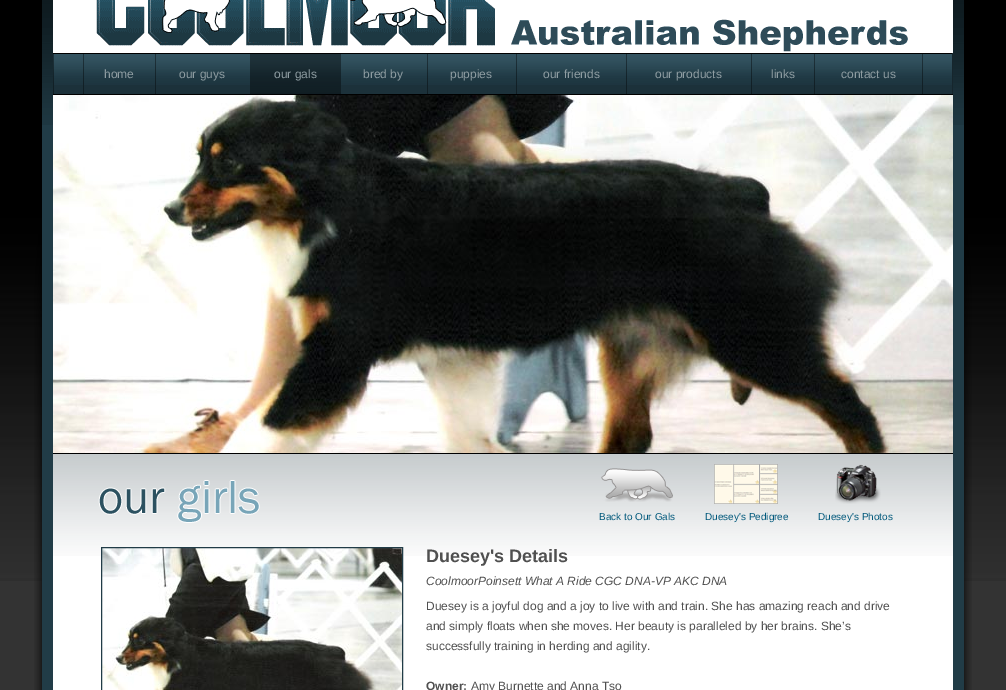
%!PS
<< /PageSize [1006 690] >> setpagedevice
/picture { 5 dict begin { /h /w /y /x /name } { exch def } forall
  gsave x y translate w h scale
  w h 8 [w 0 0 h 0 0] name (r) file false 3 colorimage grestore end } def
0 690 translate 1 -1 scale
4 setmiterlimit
0.2 setgray
0 0 1006 690 rectfill
(img1.rgb) 0 0 1006 581 picture
(img2.rgb) 34 0 19 690 picture
(img3.rgb) 42 0 11 125 picture
1 setgray
53 0 900 690 rectfill
(img4.rgb) 96 0 812 52 picture
0.11 0.192 0.227 setrgbcolor
54 85 898 9 rectfill
(img5.rgb) 54 54 898 31 picture
0 setgray
53 53 900 1 rectfill
0.086 0.149 0.176 setrgbcolor
952 53 1 42 rectfill
0 setgray
53 94 900 1 rectfill
(img6.rgb) 53 54 1 40 picture
(img6.rgb) 83 54 1 40 picture
/LiberationSans-Regular [12 0 0 -12 0 0] selectfont
0.561 0.616 0.635 setrgbcolor
104 78 moveto (home) show
(img6.rgb) 155 54 1 40 picture
179 78 moveto (our guys) show
(img6.rgb) 250 54 1 40 picture
(img7.rgb) 251 54 89 40 picture
274 78 moveto (our gals) show
(img6.rgb) 340 54 1 40 picture
363 78 moveto (bred by) show
(img6.rgb) 427 54 1 40 picture
450 78 moveto (puppies) show
(img6.rgb) 516 54 1 40 picture
543 78 moveto (our friends) show
(img6.rgb) 626 54 1 40 picture
655 78 moveto (our products) show
(img6.rgb) 751 54 1 40 picture
771 78 moveto (links) show
(img6.rgb) 814 54 1 40 picture
841 78 moveto (contact us) show
(img6.rgb) 922 54 1 40 picture
(img8.rgb) 53 95 900 358 picture
(img9.rgb) 53 454 900 102 picture
0 setgray
53 453 900 1 rectfill
(img10.rgb) 98 480 162 43 picture
(img11.rgb) 601 468 72 34 picture
/LiberationSans-Regular [10 0 0 -10 0 0] selectfont
0 0.345 0.482 setrgbcolor
599 520 moveto (Back to Our Gals) show
(img12.rgb) 714 464 64 40 picture
705 520 moveto (Duesey's Pedigree) show
(img13.rgb) 835 464 46 40 picture
818 520 moveto (Duesey's Photos) show
(img14.rgb) 102 548 300 142 picture
0.129 0.235 0.278 setrgbcolor
101.5 547.5 301 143 rectstroke
/LiberationSans-Bold [18 0 0 -18 0 0] selectfont
0.314 setgray
426 562 moveto (Duesey's Details) show
/LiberationSans-Italic [12 0 0 -12 0 0] selectfont
426 585 moveto (CoolmoorPoinsett What A Ride CGC DNA-VP AKC DNA) show
/LiberationSans-Regular [12 0 0 -12 0 0] selectfont
426 610 moveto (Duesey is a joyful dog and a joy to live with and train. She has amazing reach and drive) show
426 630 moveto (and simply floats when she moves. Her beauty is paralleled by her brains. She’s) show
426 650 moveto (successfully training in herding and agility.) show
/LiberationSans-Bold [12 0 0 -12 0 0] selectfont
426 690 moveto (Owner:) show
/LiberationSans-Regular [12 0 0 -12 0 0] selectfont
471 690 moveto (Amy Burnette and Anna Tso) show
(img15.rgb) 953 0 19 690 picture
(img3.rgb) 953 0 11 125 picture
showpage
